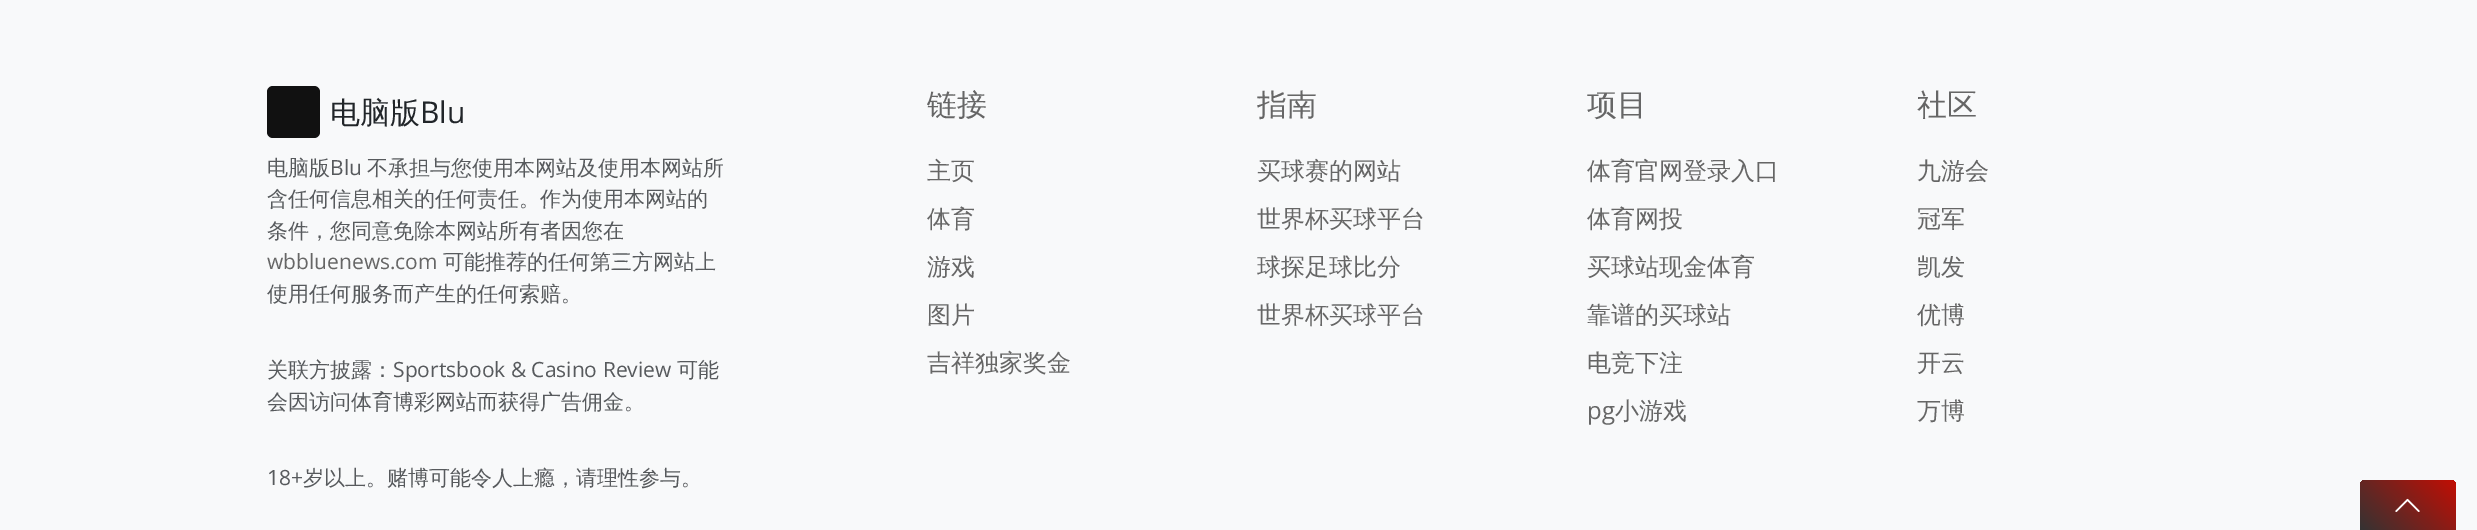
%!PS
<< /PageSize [2477 530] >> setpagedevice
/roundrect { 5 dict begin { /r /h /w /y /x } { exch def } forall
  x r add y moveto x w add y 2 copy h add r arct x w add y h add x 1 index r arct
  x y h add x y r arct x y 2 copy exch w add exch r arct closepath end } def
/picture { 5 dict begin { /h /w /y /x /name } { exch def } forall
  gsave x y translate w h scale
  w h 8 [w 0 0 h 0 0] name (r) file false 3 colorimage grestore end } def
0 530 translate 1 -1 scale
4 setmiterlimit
0.973 0.976 0.98 setrgbcolor
0 0 2477 530 rectfill
0.067 setgray
267 86 53 52 6 roundrect fill
/WenQuanYiZenHei-Medium [30 0 0 -30 0 0] selectfont
0.129 0.145 0.161 setrgbcolor
330 123 moveto (电脑版) show
/OpenSans-Regular [30 0 0 -30 0 0] selectfont
420 123 moveto (Blu) show
/WenQuanYiZenHei-Medium [21 0 0 -21 0 0] selectfont
0.341 0.353 0.365 setrgbcolor
267 175 moveto (电脑版) show
/OpenSans-Regular [21 0 0 -21 0 0] selectfont
330 175 moveto (Blu) show
/WenQuanYiZenHei-Medium [21 0 0 -21 0 0] selectfont
367 175 moveto (不承担与您使用本网站及使用本网站所) show
267 206 moveto (含任何信息相关的任何责任。作为使用本网站的) show
267 238 moveto (条件，您同意免除本网站所有者因您在) show
/OpenSans-Regular [21 0 0 -21 0 0] selectfont
0.4 setgray
267 269 moveto (wbbluenews.com) show
/WenQuanYiZenHei-Medium [21 0 0 -21 0 0] selectfont
0.341 0.353 0.365 setrgbcolor
443 269 moveto (可能推荐的任何第三方网站上) show
267 301 moveto (使用任何服务而产生的任何索赔。) show
267 377 moveto (关联方披露：) show
/OpenSans-Regular [21 0 0 -21 0 0] selectfont
393 377 moveto (Sportsbook & Casino Review) show
/WenQuanYiZenHei-Medium [21 0 0 -21 0 0] selectfont
677 377 moveto (可能) show
267 409 moveto (会因访问体育博彩网站而获得广告佣金。) show
/OpenSans-Regular [21 0 0 -21 0 0] selectfont
267 485 moveto (18+) show
/WenQuanYiZenHei-Medium [21 0 0 -21 0 0] selectfont
303 485 moveto (岁以上。赌博可能令人上瘾，请理性参与。) show
/WenQuanYiZenHei-Medium [30 0 0 -30 0 0] selectfont
0.4 setgray
927 115 moveto (链接) show
/WenQuanYiZenHei-Medium [24 0 0 -24 0 0] selectfont
927 179 moveto (主页) show
927 227 moveto (体育) show
927 275 moveto (游戏) show
927 323 moveto (图片) show
927 371 moveto (吉祥独家奖金) show
/WenQuanYiZenHei-Medium [30 0 0 -30 0 0] selectfont
1257 115 moveto (指南) show
/WenQuanYiZenHei-Medium [24 0 0 -24 0 0] selectfont
1257 179 moveto (买球赛的网站) show
1257 227 moveto (世界杯买球平台) show
1257 275 moveto (球探足球比分) show
1257 323 moveto (世界杯买球平台) show
/WenQuanYiZenHei-Medium [30 0 0 -30 0 0] selectfont
1587 115 moveto (项目) show
/WenQuanYiZenHei-Medium [24 0 0 -24 0 0] selectfont
1587 179 moveto (体育官网登录入口) show
1587 227 moveto (体育网投) show
1587 275 moveto (买球站现金体育) show
1587 323 moveto (靠谱的买球站) show
1587 371 moveto (电竞下注) show
/OpenSans-Regular [24 0 0 -24 0 0] selectfont
1587 419 moveto (pg) show
/WenQuanYiZenHei-Medium [24 0 0 -24 0 0] selectfont
1615 419 moveto (小游戏) show
/WenQuanYiZenHei-Medium [30 0 0 -30 0 0] selectfont
1917 115 moveto (社区) show
/WenQuanYiZenHei-Medium [24 0 0 -24 0 0] selectfont
1917 179 moveto (九游会) show
1917 227 moveto (冠军) show
1917 275 moveto (凯发) show
1917 323 moveto (优博) show
1917 371 moveto (开云) show
1917 419 moveto (万博) show
gsave newpath 2366 480 moveto 2450 480 lineto 2453.5 480 2456 482.5 2456 486 curveto 2456 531 lineto 2360 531 lineto 2360 486 lineto 2360 482.5 2362.5 480 2366 480 curveto closepath clip newpath
<< /ShadingType 2 /ColorSpace /DeviceRGB /Coords [2371 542 2444 469] /Extend [true true] /Function << /FunctionType 2 /Domain [0 1] /C0 [0.2 0.2 0.2] /C1 [0.757 0.055 0.016] /N 1 >> >> shfill grestore
(img1.rgb) 2395 498 25 14 picture
showpage
